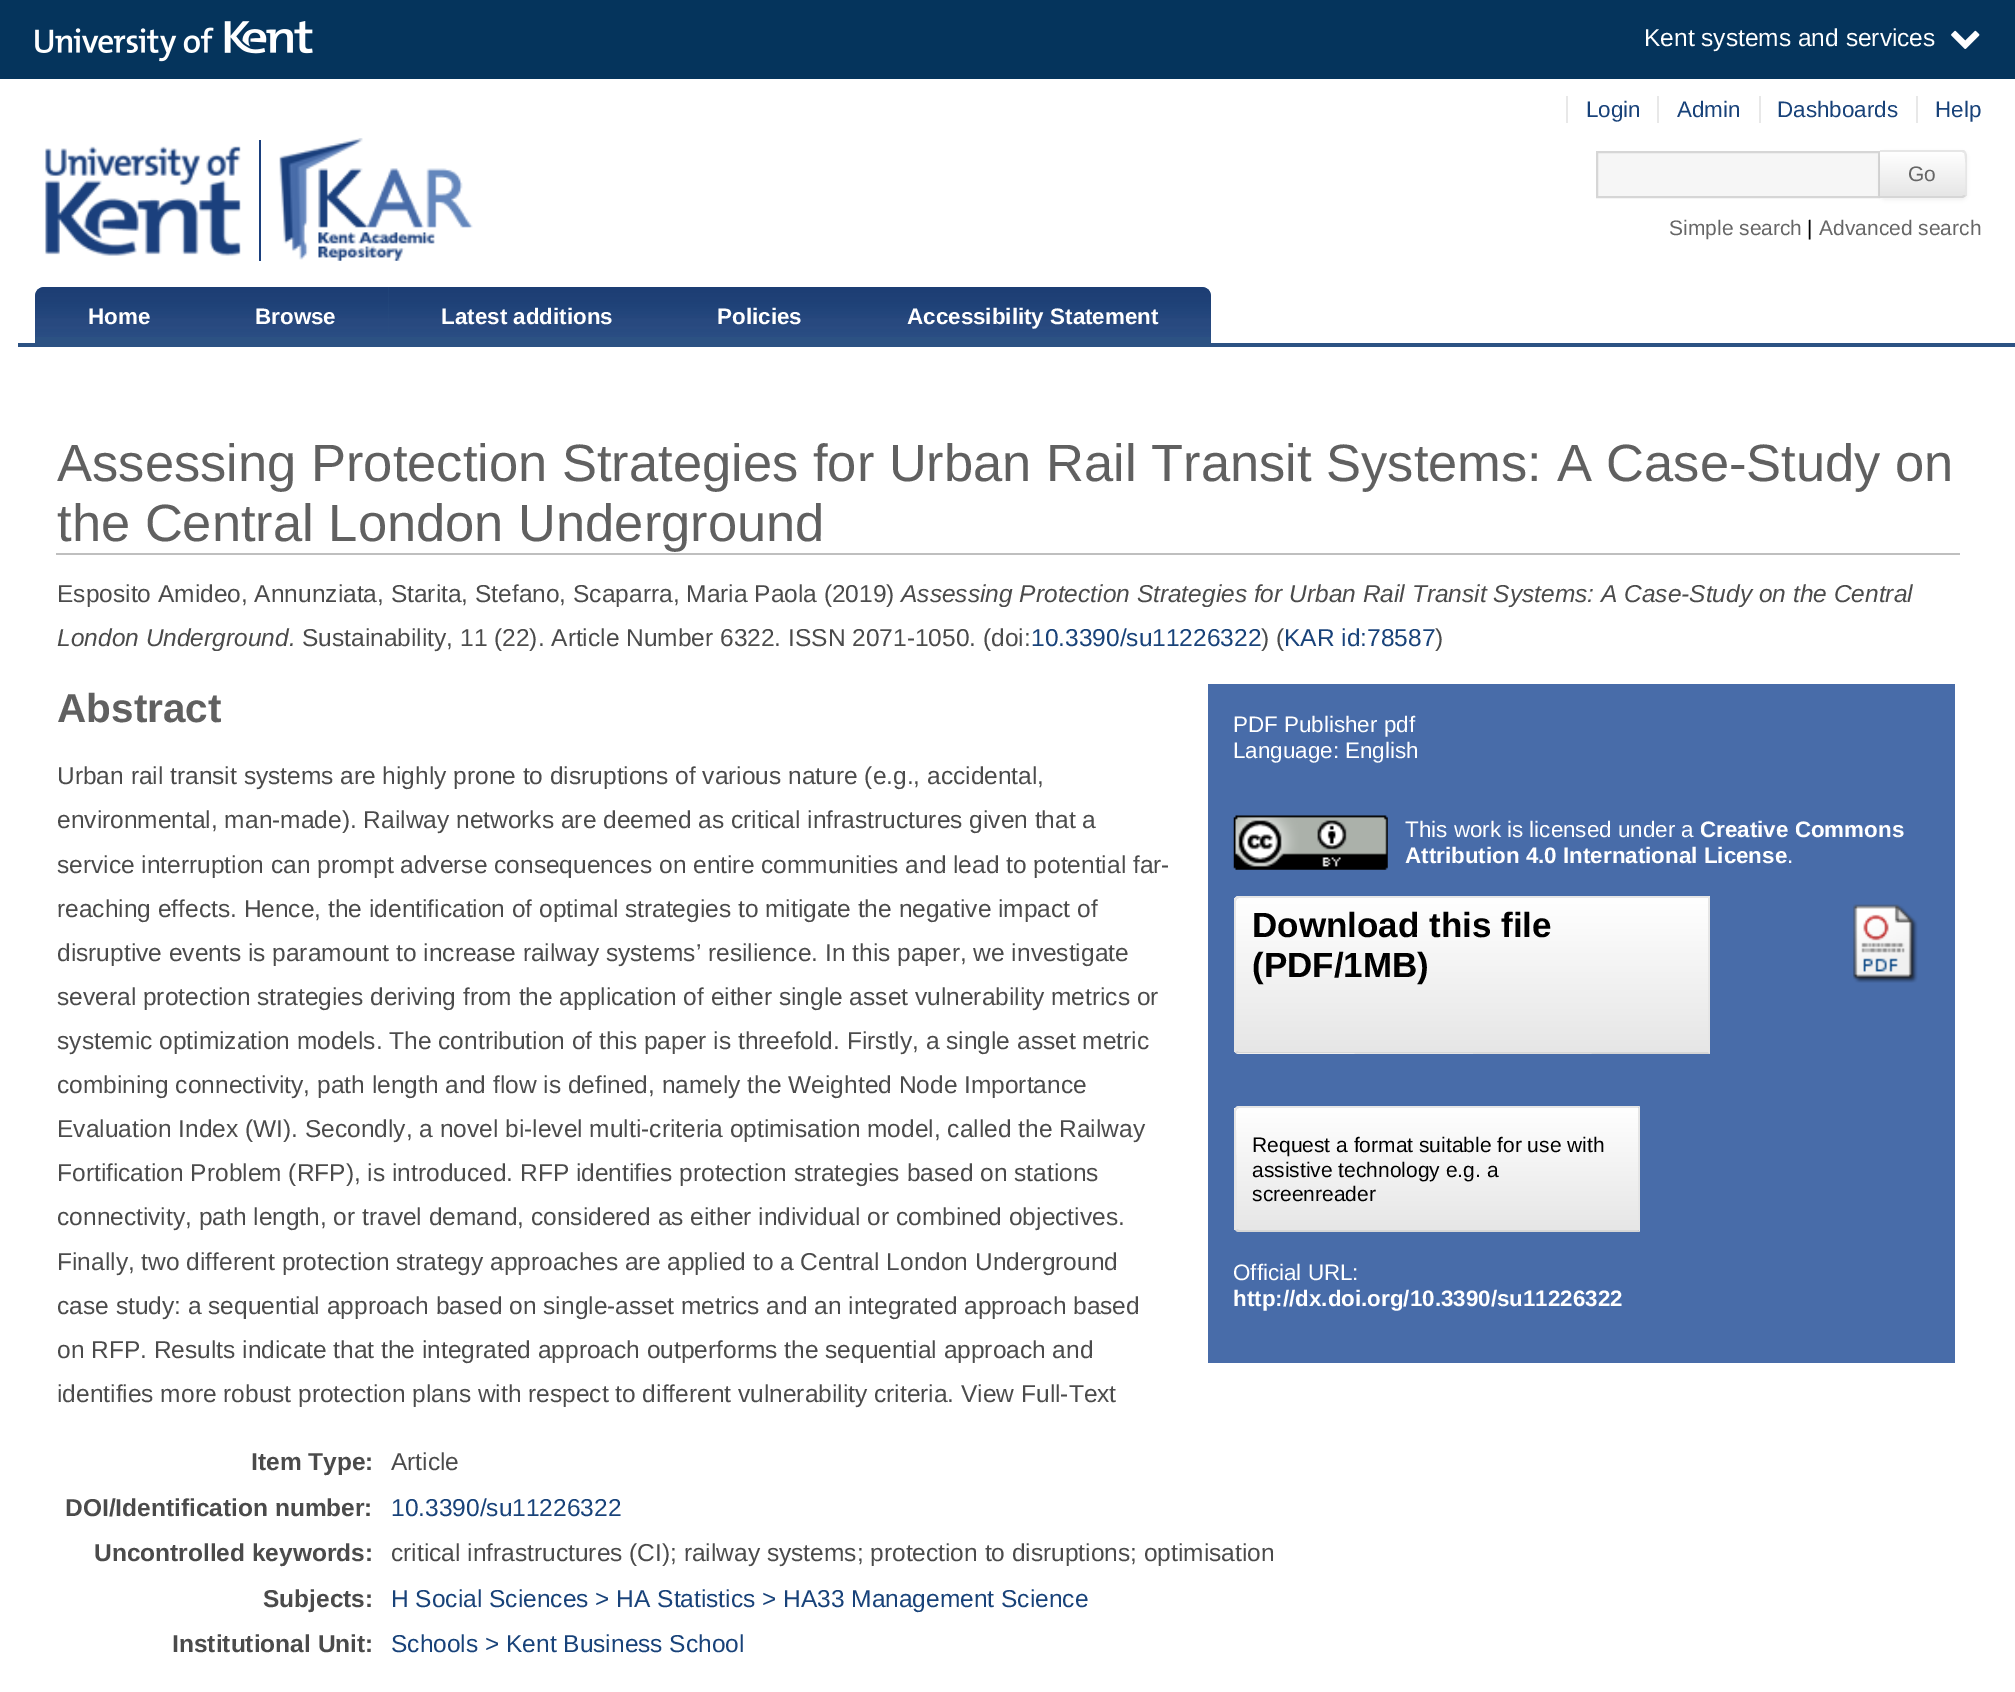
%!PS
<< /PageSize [2015 1692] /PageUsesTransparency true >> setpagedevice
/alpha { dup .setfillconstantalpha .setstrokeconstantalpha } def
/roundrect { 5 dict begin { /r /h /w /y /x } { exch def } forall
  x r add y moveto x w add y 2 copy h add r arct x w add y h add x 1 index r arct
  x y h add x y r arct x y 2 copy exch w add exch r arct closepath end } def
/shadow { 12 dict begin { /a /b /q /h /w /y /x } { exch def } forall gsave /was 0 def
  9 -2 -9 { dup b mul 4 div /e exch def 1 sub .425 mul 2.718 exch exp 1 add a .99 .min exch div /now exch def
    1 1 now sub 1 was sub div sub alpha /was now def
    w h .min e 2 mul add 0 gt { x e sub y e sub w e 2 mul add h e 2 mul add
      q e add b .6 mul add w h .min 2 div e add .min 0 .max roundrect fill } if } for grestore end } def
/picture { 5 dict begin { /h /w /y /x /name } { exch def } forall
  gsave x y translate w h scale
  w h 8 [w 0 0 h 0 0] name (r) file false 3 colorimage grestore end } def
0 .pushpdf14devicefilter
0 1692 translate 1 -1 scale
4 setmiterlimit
1 setgray
0 0 2015 1692 rectfill
0.02 0.204 0.361 setrgbcolor
0 0 2015 79 rectfill
(img1.rgb) 35 21 278 41 picture
/LiberationSans-Regular [24.5 0 0 -24.5 0 0] selectfont
1 setgray
1644 46 moveto (Kent systems and services) show
(img2.rgb) 1951 30 29 19 picture
(img3.rgb) 45 146 196 110 picture
0.106 0.251 0.49 setrgbcolor
259 140 2 121 rectfill
(img4.rgb) 279 138 194 123 picture
/LiberationSans-Regular [22.4 0 0 -22.4 0 0] selectfont
0.094 0.259 0.475 setrgbcolor
1586 117 moveto (Login) show
0.91 setgray
1566 96 2 27 rectfill
0.094 0.259 0.475 setrgbcolor
1677 117 moveto (Admin) show
0.91 setgray
1657 96 2 27 rectfill
0.094 0.259 0.475 setrgbcolor
1777 117 moveto (Dashboards) show
0.91 setgray
1759 96 2 27 rectfill
0.094 0.259 0.475 setrgbcolor
1935 117 moveto (Help) show
0.91 setgray
1916 96 2 27 rectfill
0.965 setgray
newpath 1597 152 moveto 1879 152 lineto 1879 197 lineto 1597 197 lineto closepath gsave fill grestore
0.839 setgray
2 setlinewidth
stroke
0 setgray
1880 152 87 48 5 2 0.05 shadow
0.976 setgray
newpath 1880 151 moveto 1962 151 lineto 1965 151 1967 153 1967 156 curveto 1967 193 lineto 1967 196 1965 198 1962 198 curveto 1880 198 lineto closepath fill
gsave
newpath 1880 151 moveto 1962 151 lineto 1965 151 1967 153 1967 156 curveto 1967 193 lineto 1967 196 1965 198 1962 198 curveto 1880 198 lineto closepath clip newpath
gsave newpath 1880 152 moveto 1967 152 lineto 1967 196 lineto 1880 196 lineto closepath clip newpath
<< /ShadingType 2 /ColorSpace /DeviceRGB /Coords [1922 152 1922 196] /Extend [true true] /Function << /FunctionType 2 /Domain [0 1] /C0 [1 1 1] /C1 [0.902 0.902 0.902] /N 1 >> >> shfill grestore
grestore
0.902 setgray
newpath 1880 152 moveto 1880 150 lineto 1964 150 lineto 1966 152 lineto 1964 153 lineto 1962 152 lineto closepath fill
newpath 1964 195 moveto 1966 193 1966 155 1964 153 curveto 1966 152 lineto 1966 153 1967 154 1967 156 curveto 1967 192 lineto 1967 194 1966 195 1966 196 curveto closepath fill
0.839 setgray
newpath 1963 198 moveto 1880 198 lineto 1880 196 lineto 1962 196 lineto 1964 195 lineto 1966 196 lineto closepath fill
/LiberationSans-Regular [21 0 0 -21 0 0] selectfont
0.4 setgray
1908 181 moveto (Go) show
1669 235 moveto (Simple search) show
0 setgray
1807 235 moveto (|) show
0.4 setgray
1819 235 moveto (Advanced search) show
0.173 0.322 0.514 setrgbcolor
18 343 1997 4 rectfill
newpath 44 287 moveto 203 287 lineto 203 343 lineto 35 343 lineto 35 296 lineto 35 291 39 287 44 287 curveto closepath fill
(img5.rgb) 35 287 168 50 picture
/LiberationSans-Bold [22.4 0 0 -22.4 0 0] selectfont
1 setgray
88 324 moveto (Home) show
0.173 0.322 0.514 setrgbcolor
203 287 186 56 rectfill
(img6.rgb) 203 287 186 50 picture
1 setgray
255 324 moveto (Browse) show
0.173 0.322 0.514 setrgbcolor
389 337 465 6 rectfill
(img7.rgb) 388 287 277 50 picture
1 setgray
441 324 moveto (Latest additions) show
(img8.rgb) 665 287 189 50 picture
717 324 moveto (Policies) show
0.173 0.322 0.514 setrgbcolor
newpath 854 287 moveto 1202 287 lineto 1207 287 1211 291 1211 296 curveto 1211 343 lineto 854 343 lineto closepath fill
(img9.rgb) 854 287 357 50 picture
1 setgray
907 324 moveto (Accessibility Statement) show
0.749 setgray
56 553 1904 2 rectfill
/LiberationSans-Regular [52.5 0 0 -52.5 0 0] selectfont
0.376 setgray
57 481 moveto (Assessing Protection Strategies for Urban Rail Transit Systems: A Case-Study on) show
57 541 moveto (the Central London Underground) show
/LiberationSans-Regular [24.5 0 0 -24.5 0 0] selectfont
0.294 setgray
57 602 moveto (Esposito Amideo, Annunziata, Starita, Stefano, Scaparra, Maria Paola \(2019\)) show
/LiberationSans-Italic [24.5 0 0 -24.5 0 0] selectfont
901 602 moveto (Assessing Protection Strategies for Urban Rail Transit Systems: A Case-Study on the Central) show
57 646 moveto (London Underground.) show
/LiberationSans-Regular [24.5 0 0 -24.5 0 0] selectfont
302 646 moveto (Sustainability, 11 \(22\). Article Number 6322. ISSN 2071-1050. \(doi:) show
0.094 0.259 0.475 setrgbcolor
1031 646 moveto (10.3390/su11226322) show
0.294 setgray
1261 646 moveto (\) \() show
0.094 0.259 0.475 setrgbcolor
1284 646 moveto (KAR id:78587) show
0.294 setgray
1435 646 moveto (\)) show
/LiberationSans-Bold [40.5 0 0 -40.5 0 0] selectfont
0.376 setgray
57 722 moveto (Abstract) show
/LiberationSans-Regular [24.5 0 0 -24.5 0 0] selectfont
0.294 setgray
57 784 moveto (Urban rail transit systems are highly prone to disruptions of various nature \(e.g., accidental,) show
57 828 moveto (environmental, man-made\). Railway networks are deemed as critical infrastructures given that a) show
57 873 moveto (service interruption can prompt adverse consequences on entire communities and lead to potential far-) show
57 917 moveto (reaching effects. Hence, the identification of optimal strategies to mitigate the negative impact of) show
57 961 moveto (disruptive events is paramount to increase railway systems’ resilience. In this paper, we investigate) show
57 1005 moveto (several protection strategies deriving from the application of either single asset vulnerability metrics or) show
57 1049 moveto (systemic optimization models. The contribution of this paper is threefold. Firstly, a single asset metric) show
57 1093 moveto (combining connectivity, path length and flow is defined, namely the Weighted Node Importance) show
57 1137 moveto (Evaluation Index \(WI\). Secondly, a novel bi-level multi-criteria optimisation model, called the Railway) show
57 1181 moveto (Fortification Problem \(RFP\), is introduced. RFP identifies protection strategies based on stations) show
57 1225 moveto (connectivity, path length, or travel demand, considered as either individual or combined objectives.) show
57 1270 moveto (Finally, two different protection strategy approaches are applied to a Central London Underground) show
57 1314 moveto (case study: a sequential approach based on single-asset metrics and an integrated approach based) show
57 1358 moveto (on RFP. Results indicate that the integrated approach outperforms the sequential approach and) show
57 1402 moveto (identifies more robust protection plans with respect to different vulnerability criteria. View Full-Text) show
0.282 0.424 0.663 setrgbcolor
1208 684 747 679 rectfill
/LiberationSans-Regular [22.4 0 0 -22.4 0 0] selectfont
1 setgray
1233 732 moveto (PDF Publisher pdf) show
1233 758 moveto (Language: English) show
(img10.rgb) 1233 815 155 55 picture
1405 837 moveto (This work is licensed under a) show
/LiberationSans-Bold [22.4 0 0 -22.4 0 0] selectfont
1700 837 moveto (Creative Commons) show
1405 863 moveto (Attribution 4.0 International License) show
/LiberationSans-Regular [22.4 0 0 -22.4 0 0] selectfont
1787 863 moveto (.) show
0.976 setgray
newpath 1239 896 moveto 1710 896 lineto 1710 1054 lineto 1239 1054 lineto 1236 1054 1234 1052 1234 1049 curveto 1234 901 lineto 1234 898 1236 896 1239 896 curveto closepath fill
gsave
newpath 1239 896 moveto 1710 896 lineto 1710 1054 lineto 1239 1054 lineto 1236 1054 1234 1052 1234 1049 curveto 1234 901 lineto 1234 898 1236 896 1239 896 curveto closepath clip newpath
gsave newpath 1234 898 moveto 1708 898 lineto 1708 1052 lineto 1234 1052 lineto closepath clip newpath
<< /ShadingType 2 /ColorSpace /DeviceRGB /Coords [1472 898 1472 1052] /Extend [true true] /Function << /FunctionType 2 /Domain [0 1] /C0 [1 1 1] /C1 [0.902 0.902 0.902] /N 1 >> >> shfill grestore
grestore
0.902 setgray
newpath 1239 896 moveto 1237 896 1236 897 1235 898 curveto 1237 899 lineto 1239 898 lineto 1708 898 lineto 1710 896 lineto closepath fill
newpath 1710 896 moveto 1708 898 lineto 1708 1052 lineto 1710 1054 lineto closepath fill
0.839 setgray
newpath 1710 1054 moveto 1236 1053 lineto 1235 1052 lineto 1237 1051 lineto 1237 1051 1238 1052 1239 1052 curveto 1708 1052 lineto closepath fill
0.902 setgray
newpath 1235 898 moveto 1234 898 1234 900 1234 901 curveto 1234 1048 lineto 1234 1049 1234 1051 1235 1052 curveto 1237 1051 lineto 1236 1048 lineto 1236 901 lineto 1237 899 lineto closepath fill
/LiberationSans-Bold [35 0 0 -35 0 0] selectfont
0 setgray
1252 937 moveto (Download this file) show
1252 977 moveto (\(PDF/1MB\)) show
(img11.rgb) 1853 904 65 79 picture
gsave
newpath 1239 1106 moveto 1640 1106 lineto 1640 1232 lineto 1239 1232 lineto 1236 1232 1234 1230 1234 1227 curveto 1234 1111 lineto 1234 1108 1236 1106 1239 1106 curveto closepath clip newpath
gsave newpath 1234 1108 moveto 1638 1108 lineto 1638 1230 lineto 1234 1230 lineto closepath clip newpath
<< /ShadingType 2 /ColorSpace /DeviceRGB /Coords [1437 1108 1437 1230] /Extend [true true] /Function << /FunctionType 2 /Domain [0 1] /C0 [1 1 1] /C1 [0.902 0.902 0.902] /N 1 >> >> shfill grestore
grestore
0.902 setgray
newpath 1239 1106 moveto 1237 1106 1236 1107 1235 1108 curveto 1237 1109 lineto 1239 1108 lineto 1638 1108 lineto 1640 1106 lineto closepath fill
newpath 1640 1106 moveto 1640 1232 lineto 1638 1230 lineto 1638 1108 lineto closepath fill
0.839 setgray
newpath 1640 1232 moveto 1638 1230 lineto 1239 1230 lineto 1237 1229 lineto 1235 1230 lineto 1236 1231 1237 1232 1239 1232 curveto closepath fill
0.902 setgray
newpath 1235 1108 moveto 1234 1110 lineto 1234 1228 lineto 1235 1230 lineto 1237 1229 lineto 1236 1130 lineto 1236 1111 lineto 1237 1109 lineto closepath fill
/LiberationSans-Regular [21 0 0 -21 0 0] selectfont
0 setgray
1252 1152 moveto (Request a format suitable for use with) show
1252 1177 moveto (assistive technology e.g. a) show
1252 1201 moveto (screenreader) show
/LiberationSans-Regular [22.4 0 0 -22.4 0 0] selectfont
1 setgray
1233 1280 moveto (Official URL:) show
/LiberationSans-Bold [22.4 0 0 -22.4 0 0] selectfont
1233 1306 moveto (http://dx.doi.org/10.3390/su11226322) show
/LiberationSans-Bold [24.5 0 0 -24.5 0 0] selectfont
0.294 setgray
251 1470 moveto (Item Type:) show
/LiberationSans-Regular [24.5 0 0 -24.5 0 0] selectfont
391 1470 moveto (Article) show
/LiberationSans-Bold [24.5 0 0 -24.5 0 0] selectfont
65 1516 moveto (DOI/Identification number:) show
/LiberationSans-Regular [24.5 0 0 -24.5 0 0] selectfont
0.094 0.259 0.475 setrgbcolor
391 1516 moveto (10.3390/su11226322) show
/LiberationSans-Bold [24.5 0 0 -24.5 0 0] selectfont
0.294 setgray
94 1561 moveto (Uncontrolled keywords:) show
/LiberationSans-Regular [24.5 0 0 -24.5 0 0] selectfont
391 1561 moveto (critical infrastructures \(CI\); railway systems; protection to disruptions; optimisation) show
/LiberationSans-Bold [24.5 0 0 -24.5 0 0] selectfont
263 1607 moveto (Subjects:) show
/LiberationSans-Regular [24.5 0 0 -24.5 0 0] selectfont
0.094 0.259 0.475 setrgbcolor
391 1607 moveto (H Social Sciences > HA Statistics > HA33 Management Science) show
/LiberationSans-Bold [24.5 0 0 -24.5 0 0] selectfont
0.294 setgray
172 1652 moveto (Institutional Unit:) show
/LiberationSans-Regular [24.5 0 0 -24.5 0 0] selectfont
0.094 0.259 0.475 setrgbcolor
391 1652 moveto (Schools > Kent Business School) show
.poppdf14devicefilter showpage
